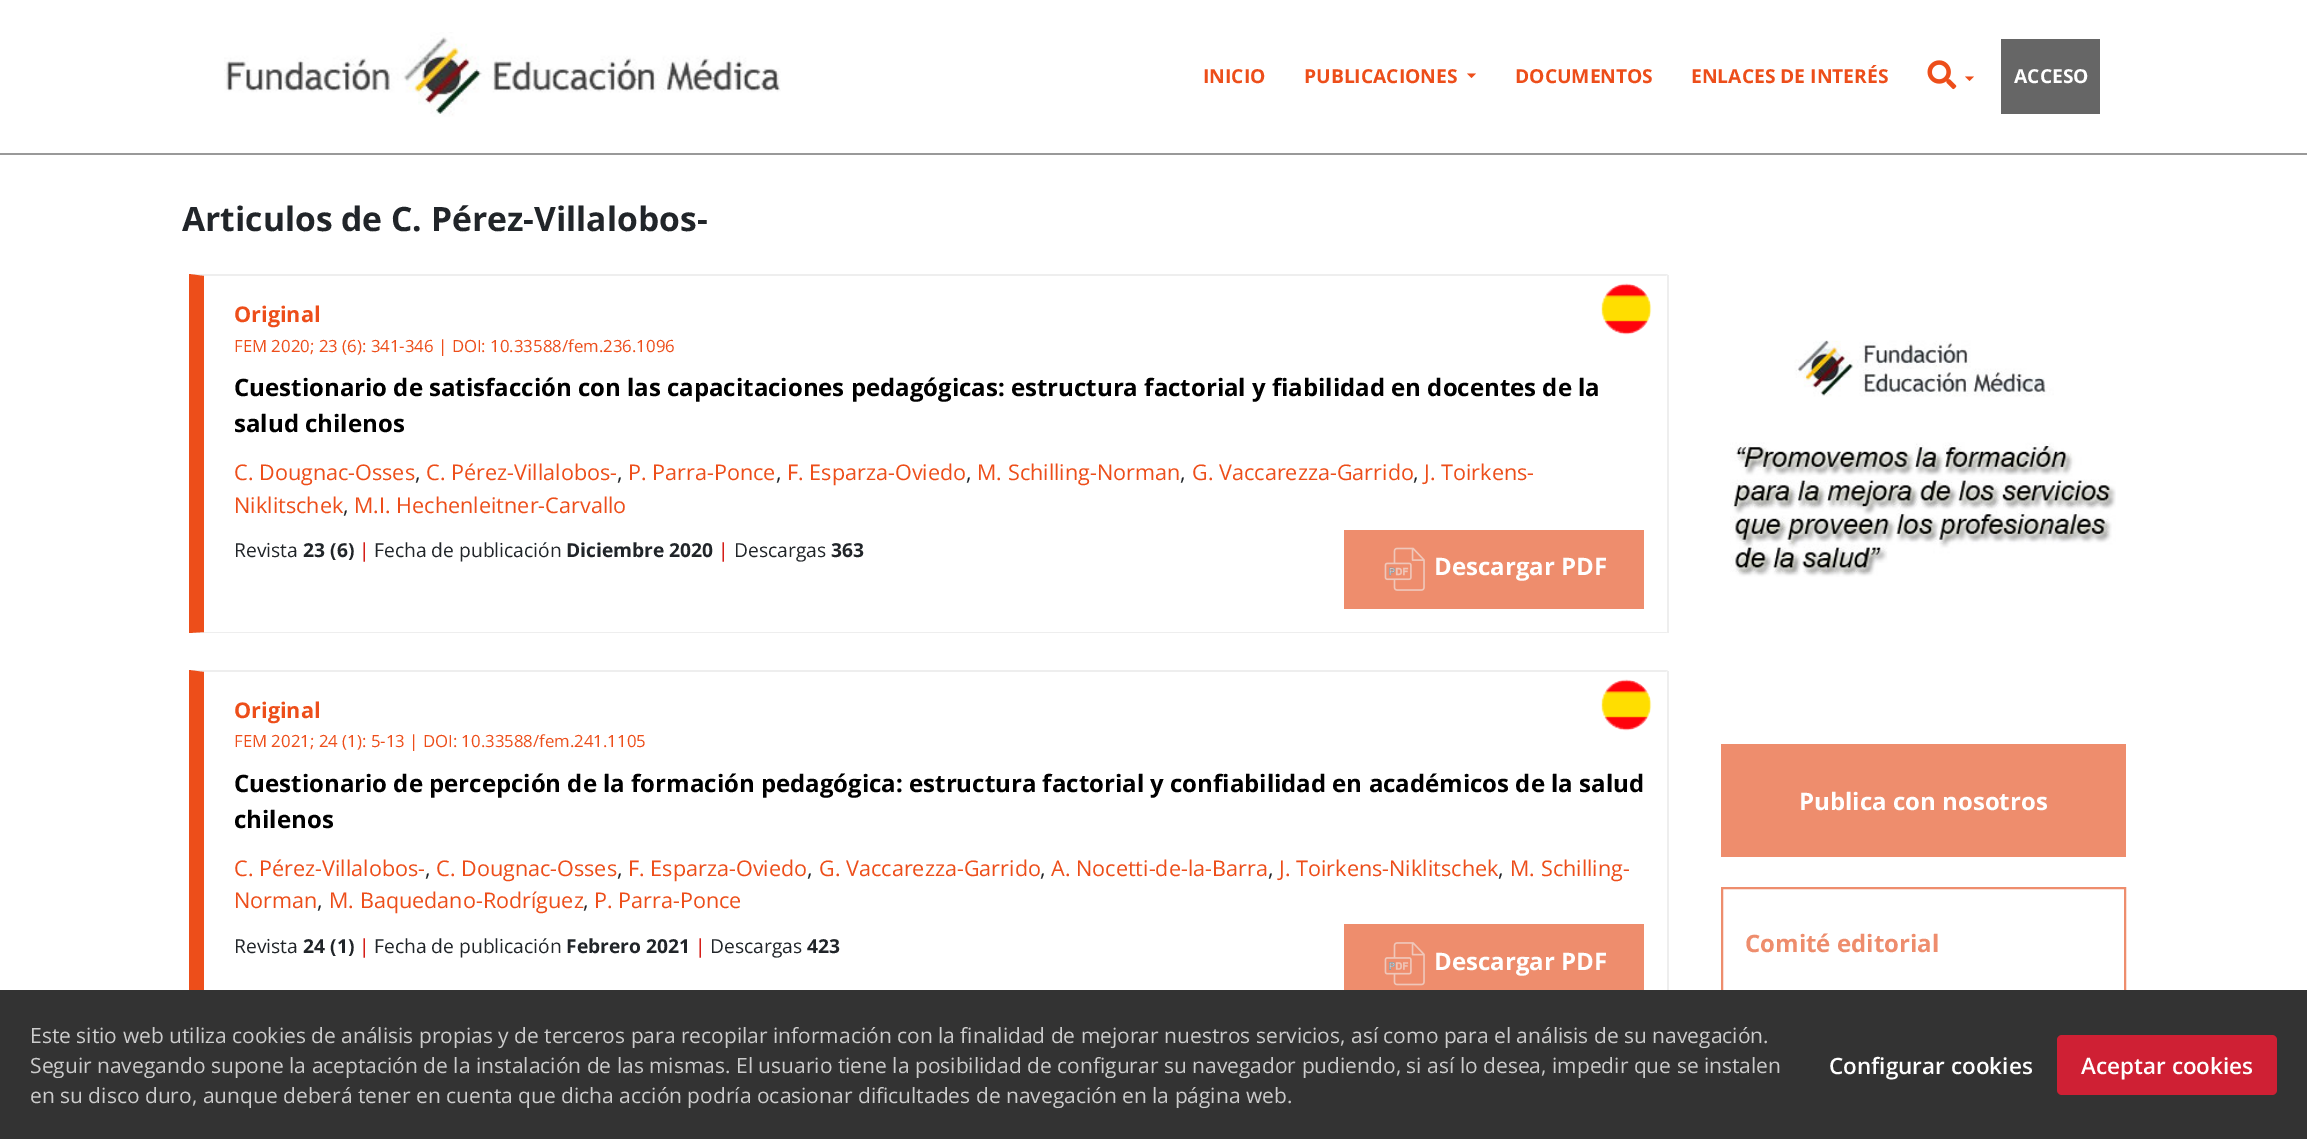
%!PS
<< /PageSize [2307 1139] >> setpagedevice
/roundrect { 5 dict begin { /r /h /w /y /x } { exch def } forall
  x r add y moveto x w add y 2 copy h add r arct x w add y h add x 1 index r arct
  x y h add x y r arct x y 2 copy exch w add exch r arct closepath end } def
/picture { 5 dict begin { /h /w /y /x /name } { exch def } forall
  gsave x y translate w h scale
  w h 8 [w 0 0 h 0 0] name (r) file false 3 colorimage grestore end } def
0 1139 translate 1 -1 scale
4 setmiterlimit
1 setgray
0 0 2307 1139 rectfill
0.6 setgray
0 153 2307 2 rectfill
(img1.rgb) 224 32 557 85 picture
/OpenSans-Bold [19.25 0 0 -19.25 0 0] selectfont
0.929 0.306 0.102 setrgbcolor
1203 83 moveto (INICIO) show
1304 83 moveto (PUBLICACIONES) show
newpath 1467 73.5 moveto 1476 73.5 lineto 1471.5 78 lineto closepath fill
1515 83 moveto (DOCUMENTOS) show
1691 83 moveto (ENLACES DE INTERÉS) show
(img2.rgb) 1927 60 30 30 picture
newpath 1965 76.5 moveto 1974 76.5 lineto 1969.5 81 lineto closepath fill
0.4 setgray
2001 39 99 75 rectfill
1 setgray
2014 83 moveto (ACCESO) show
/OpenSans-Bold [33.6 0 0 -33.6 0 0] selectfont
0.129 0.145 0.161 setrgbcolor
182 231 moveto (Articulos de C. Pérez-Villalobos-) show
0.933 setgray
newpath 189 274 moveto 1668 274 lineto 1666 276 lineto 204 276 lineto closepath fill
1667 275 2 358 rectfill
newpath 1668 633 moveto 189 633 lineto 204 632 lineto 1666 632 lineto closepath fill
0.929 0.306 0.102 setrgbcolor
newpath 189 633 moveto 189 274 lineto 204 276 lineto 204 632 lineto closepath fill
/OpenSans-Bold [21.6 0 0 -21.6 0 0] selectfont
234 322 moveto (Original) show
(img3.rgb) 1601 283 51 52 picture
/OpenSans-Regular [16.8 0 0 -16.8 0 0] selectfont
234 352 moveto (FEM 2020; 23 \(6\): 341-346 | DOI: 10.33588/fem.236.1096) show
/OpenSans-Bold [24 0 0 -24 0 0] selectfont
0 setgray
234 396 moveto (Cuestionario de satisfacción con las capacitaciones pedagógicas: estructura factorial y fiabilidad en docentes de la) show
234 432 moveto (salud chilenos) show
/OpenSans-Regular [21.6 0 0 -21.6 0 0] selectfont
0.929 0.306 0.102 setrgbcolor
234 480 moveto (C. Dougnac-Osses) show
0.129 0.145 0.161 setrgbcolor
415 480 moveto (,) show
0.929 0.306 0.102 setrgbcolor
426 480 moveto (C. Pérez-Villalobos-) show
0.129 0.145 0.161 setrgbcolor
617 480 moveto (,) show
0.929 0.306 0.102 setrgbcolor
628 480 moveto (P. Parra-Ponce) show
0.129 0.145 0.161 setrgbcolor
776 480 moveto (,) show
0.929 0.306 0.102 setrgbcolor
787 480 moveto (F. Esparza-Oviedo) show
0.129 0.145 0.161 setrgbcolor
966 480 moveto (,) show
0.929 0.306 0.102 setrgbcolor
977 480 moveto (M. Schilling-Norman) show
0.129 0.145 0.161 setrgbcolor
1180 480 moveto (,) show
0.929 0.306 0.102 setrgbcolor
1192 480 moveto (G. Vaccarezza-Garrido) show
0.129 0.145 0.161 setrgbcolor
1413 480 moveto (,) show
0.929 0.306 0.102 setrgbcolor
1424 480 moveto (J. Toirkens-) show
234 513 moveto (Niklitschek) show
0.129 0.145 0.161 setrgbcolor
343 513 moveto (,) show
0.929 0.306 0.102 setrgbcolor
354 513 moveto (M.I. Hechenleitner-Carvallo) show
/OpenSans-Regular [19.25 0 0 -19.25 0 0] selectfont
0.129 0.145 0.161 setrgbcolor
234 557 moveto (Revista) show
/OpenSans-Bold [19.25 0 0 -19.25 0 0] selectfont
303 557 moveto (23 \(6\)) show
/OpenSans-Regular [19.25 0 0 -19.25 0 0] selectfont
0.835 0.118 0.094 setrgbcolor
359 557 moveto (|) show
0.129 0.145 0.161 setrgbcolor
374 557 moveto (Fecha de publicación) show
/OpenSans-Bold [19.25 0 0 -19.25 0 0] selectfont
566 557 moveto (Diciembre 2020) show
/OpenSans-Regular [19.25 0 0 -19.25 0 0] selectfont
0.835 0.118 0.094 setrgbcolor
718 557 moveto (|) show
0.129 0.145 0.161 setrgbcolor
734 557 moveto (Descargas) show
/OpenSans-Bold [19.25 0 0 -19.25 0 0] selectfont
831 557 moveto (363) show
0.933 0.553 0.427 setrgbcolor
1344 530 300 79 rectfill
(img4.rgb) 1384 547 41 44 picture
/OpenSans-Bold [24 0 0 -24 0 0] selectfont
1 setgray
1434 575 moveto (Descargar PDF) show
0.933 setgray
newpath 189 670 moveto 1668 670 lineto 1666 672 lineto 204 672 lineto closepath fill
1667 671 2 319 rectfill
0.929 0.306 0.102 setrgbcolor
newpath 189 1028 moveto 189 670 lineto 204 672 lineto 204 1026 lineto closepath fill
/OpenSans-Bold [21.6 0 0 -21.6 0 0] selectfont
234 718 moveto (Original) show
(img3.rgb) 1601 679 51 52 picture
/OpenSans-Regular [16.8 0 0 -16.8 0 0] selectfont
234 747 moveto (FEM 2021; 24 \(1\): 5-13 | DOI: 10.33588/fem.241.1105) show
/OpenSans-Bold [24 0 0 -24 0 0] selectfont
0 setgray
234 792 moveto (Cuestionario de percepción de la formación pedagógica: estructura factorial y confiabilidad en académicos de la salud) show
234 828 moveto (chilenos) show
/OpenSans-Regular [21.6 0 0 -21.6 0 0] selectfont
0.929 0.306 0.102 setrgbcolor
234 876 moveto (C. Pérez-Villalobos-) show
0.129 0.145 0.161 setrgbcolor
425 876 moveto (,) show
0.929 0.306 0.102 setrgbcolor
436 876 moveto (C. Dougnac-Osses) show
0.129 0.145 0.161 setrgbcolor
617 876 moveto (,) show
0.929 0.306 0.102 setrgbcolor
628 876 moveto (F. Esparza-Oviedo) show
0.129 0.145 0.161 setrgbcolor
807 876 moveto (,) show
0.929 0.306 0.102 setrgbcolor
819 876 moveto (G. Vaccarezza-Garrido) show
0.129 0.145 0.161 setrgbcolor
1040 876 moveto (,) show
0.929 0.306 0.102 setrgbcolor
1051 876 moveto (A. Nocetti-de-la-Barra) show
0.129 0.145 0.161 setrgbcolor
1268 876 moveto (,) show
0.929 0.306 0.102 setrgbcolor
1279 876 moveto (J. Toirkens-Niklitschek) show
0.129 0.145 0.161 setrgbcolor
1498 876 moveto (,) show
0.929 0.306 0.102 setrgbcolor
1510 876 moveto (M. Schilling-) show
234 908 moveto (Norman) show
0.129 0.145 0.161 setrgbcolor
317 908 moveto (,) show
0.929 0.306 0.102 setrgbcolor
329 908 moveto (M. Baquedano-Rodríguez) show
0.129 0.145 0.161 setrgbcolor
583 908 moveto (,) show
0.929 0.306 0.102 setrgbcolor
594 908 moveto (P. Parra-Ponce) show
/OpenSans-Regular [19.25 0 0 -19.25 0 0] selectfont
0.129 0.145 0.161 setrgbcolor
234 953 moveto (Revista) show
/OpenSans-Bold [19.25 0 0 -19.25 0 0] selectfont
303 953 moveto (24 \(1\)) show
/OpenSans-Regular [19.25 0 0 -19.25 0 0] selectfont
0.835 0.118 0.094 setrgbcolor
359 953 moveto (|) show
0.129 0.145 0.161 setrgbcolor
374 953 moveto (Fecha de publicación) show
/OpenSans-Bold [19.25 0 0 -19.25 0 0] selectfont
566 953 moveto (Febrero 2021) show
/OpenSans-Regular [19.25 0 0 -19.25 0 0] selectfont
0.835 0.118 0.094 setrgbcolor
695 953 moveto (|) show
0.129 0.145 0.161 setrgbcolor
710 953 moveto (Descargas) show
/OpenSans-Bold [19.25 0 0 -19.25 0 0] selectfont
807 953 moveto (423) show
0.933 0.553 0.427 setrgbcolor
1344 924 300 66 rectfill
(img5.rgb) 1384 942 41 44 picture
/OpenSans-Bold [24 0 0 -24 0 0] selectfont
1 setgray
1434 970 moveto (Descargar PDF) show
(img6.rgb) 1730 340 386 237 picture
0.933 0.553 0.427 setrgbcolor
1721 744 405 113 rectfill
1 setgray
1799 810 moveto (Publica con nosotros) show
0.933 0.553 0.427 setrgbcolor
2 setlinewidth
1722 888 403 110 rectstroke
1745 952 moveto (Comité editorial) show
0.2 setgray
0 990 2307 149 rectfill
/OpenSans-Regular [21 0 0 -21 0 0] selectfont
0.8 setgray
30 1043 moveto (Este sitio web utiliza cookies de análisis propias y de terceros para recopilar información con la finalidad de mejorar nuestros servicios, así como para el análisis de su navegación.) show
30 1073 moveto (Seguir navegando supone la aceptación de la instalación de las mismas. El usuario tiene la posibilidad de configurar su navegador pudiendo, si así lo desea, impedir que se instalen) show
30 1103 moveto (en su disco duro, aunque deberá tener en cuenta que dicha acción podría ocasionar dificultades de navegación en la página web.) show
/OpenSans-SemiBold [22.5 0 0 -22.5 0 0] selectfont
1 setgray
1829 1074 moveto (Configurar cookies) show
0.812 0.125 0.204 setrgbcolor
2057 1035 220 60 5 roundrect fill
1 setgray
2081 1074 moveto (Aceptar cookies) show
showpage
